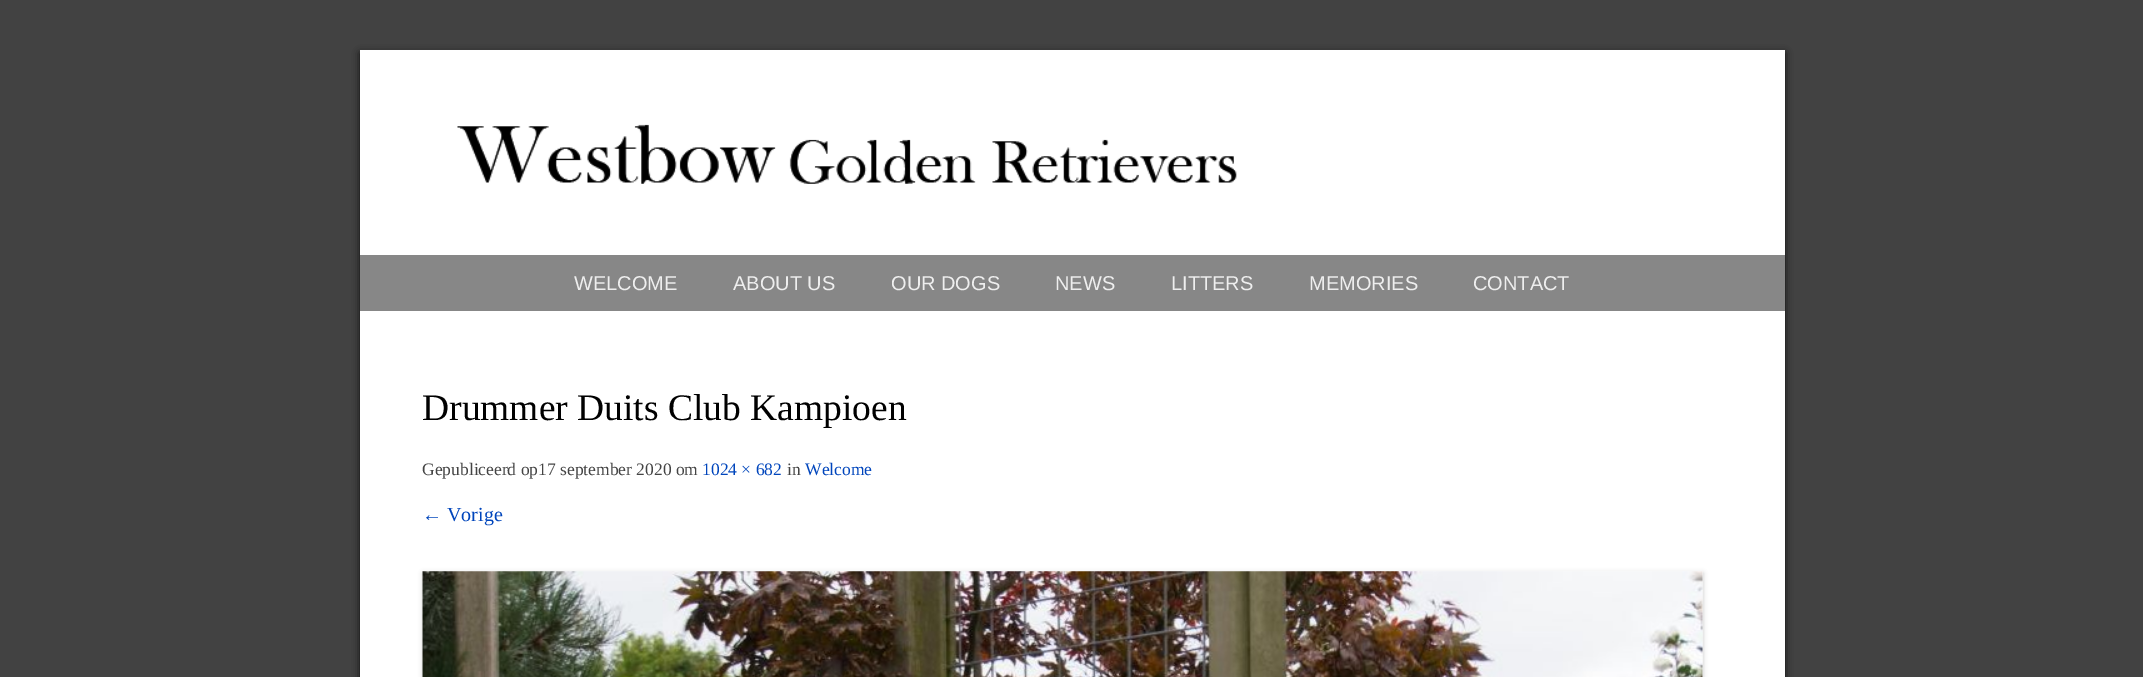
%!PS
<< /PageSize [2143 677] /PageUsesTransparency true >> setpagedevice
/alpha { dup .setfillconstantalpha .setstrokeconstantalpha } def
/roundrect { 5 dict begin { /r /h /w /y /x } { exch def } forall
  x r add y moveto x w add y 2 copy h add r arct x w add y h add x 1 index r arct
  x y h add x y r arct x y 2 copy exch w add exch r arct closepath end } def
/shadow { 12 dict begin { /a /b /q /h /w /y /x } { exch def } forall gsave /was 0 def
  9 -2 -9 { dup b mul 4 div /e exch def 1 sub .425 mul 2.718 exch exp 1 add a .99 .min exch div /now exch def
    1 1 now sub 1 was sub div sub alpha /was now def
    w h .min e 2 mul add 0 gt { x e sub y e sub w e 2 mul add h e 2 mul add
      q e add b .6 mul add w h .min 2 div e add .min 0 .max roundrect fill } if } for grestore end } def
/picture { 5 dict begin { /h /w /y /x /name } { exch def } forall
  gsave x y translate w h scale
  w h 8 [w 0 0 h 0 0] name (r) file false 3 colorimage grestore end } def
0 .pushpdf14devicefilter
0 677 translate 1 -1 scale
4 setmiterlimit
0.259 setgray
0 0 2143 677 rectfill
0 setgray
360 53 1425 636 0 4 0.8 shadow
1 setgray
360 50 1425 205 rectfill
(img1.rgb) 457 124 780 60 picture
0.529 setgray
360 255 1425 56 rectfill
/LiberationSans-Regular [20 0 0 -20 0 0] selectfont
0.933 setgray
574 290 moveto (WELCOME) show
733 290 moveto (ABOUT US) show
891 290 moveto (OUR DOGS) show
1055 290 moveto (NEWS) show
1171 290 moveto (LITTERS) show
1309 290 moveto (MEMORIES) show
1473 290 moveto (CONTACT) show
1 setgray
360 311 1425 366 rectfill
/LiberationSerif-Regular [37.5 0 0 -37.5 0 0] selectfont
0 setgray
422 420 moveto (Drummer Duits Club Kampioen) show
/LiberationSerif-Regular [17.5 0 0 -17.5 0 0] selectfont
0.267 setgray
422 475 moveto (Gepubliceerd op17 september 2020 om) show
0 0.271 0.737 setrgbcolor
702 475 moveto (1024 × 682) show
0.267 setgray
787 475 moveto (in) show
0 0.271 0.737 setrgbcolor
805 475 moveto (Welcome) show
/LiberationSerif-Regular [20 0 0 -20 0 0] selectfont
422 521 moveto (← Vorige) show
0 setgray
423 573 1280 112 0 2.5 0.2 shadow
(img2.rgb) 422 571 1281 106 picture
.poppdf14devicefilter showpage
